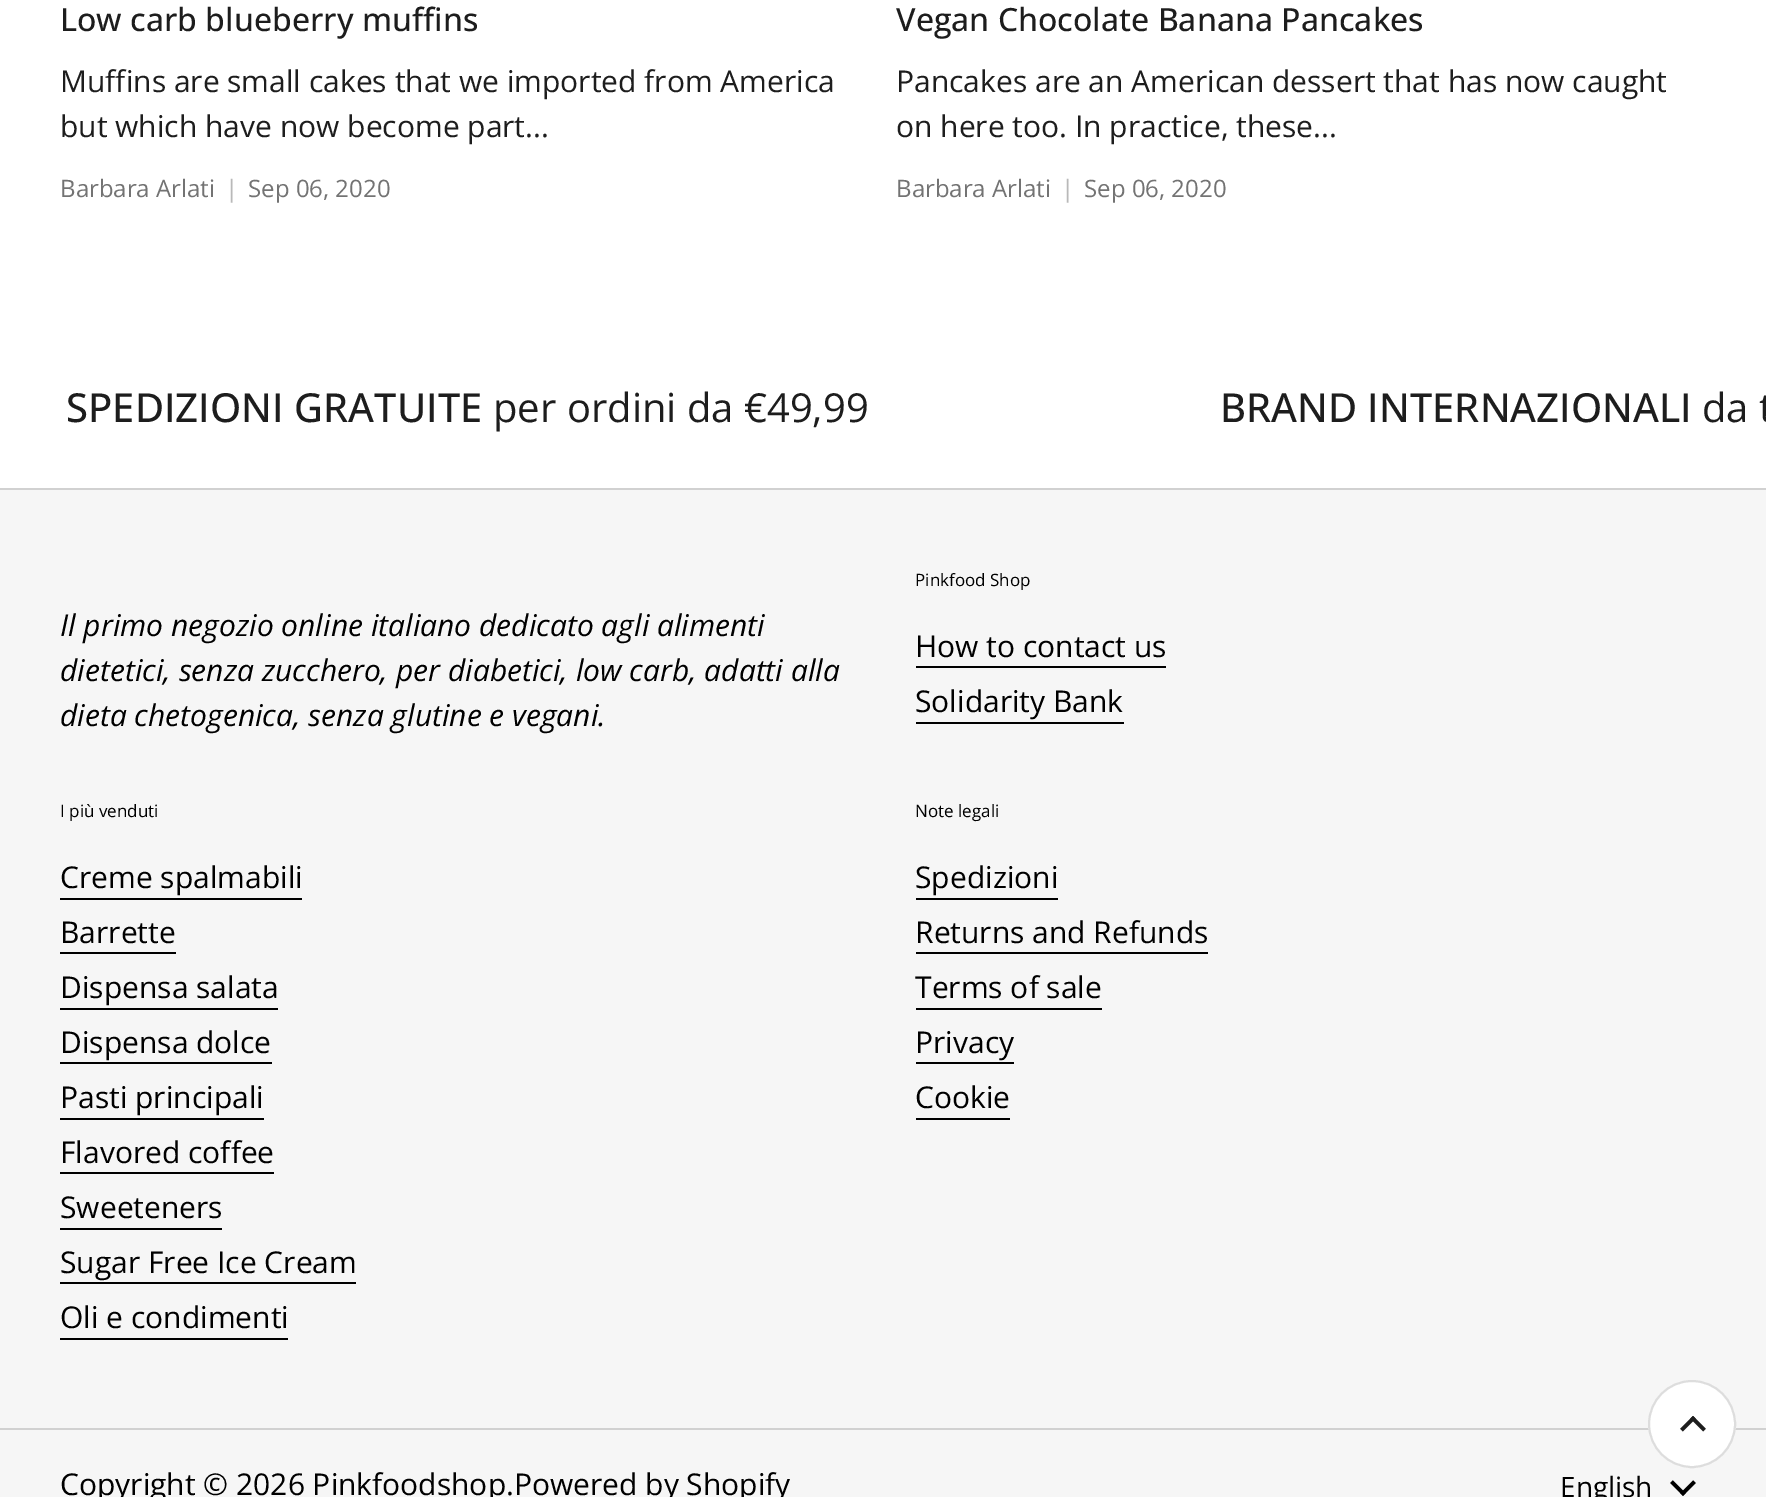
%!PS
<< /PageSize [1766 1497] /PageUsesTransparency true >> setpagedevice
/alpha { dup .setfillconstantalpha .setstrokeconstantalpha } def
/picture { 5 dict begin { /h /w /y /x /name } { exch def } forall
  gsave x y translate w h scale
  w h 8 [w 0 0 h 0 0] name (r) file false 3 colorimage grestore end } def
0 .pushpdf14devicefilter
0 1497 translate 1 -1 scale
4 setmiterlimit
1 setgray
0 0 1766 1497 rectfill
/OpenSans-Medium [32 0 0 -32 0 0] selectfont
0.114 setgray
60 31 moveto (Low carb blueberry muffins) show
/OpenSans-Regular [30 0 0 -30 0 0] selectfont
60 92 moveto (Muffins are small cakes that we imported from America) show
60 137 moveto (but which have now become part...) show
/OpenSans-Regular [24 0 0 -24 0 0] selectfont
0.451 setgray
60 197 moveto (Barbara Arlati) show
0.725 setgray
225 197 moveto (|) show
0.451 setgray
248 197 moveto (Sep 06, 2020) show
/OpenSans-Medium [32 0 0 -32 0 0] selectfont
0.114 setgray
896 31 moveto (Vegan Chocolate Banana Pancakes) show
/OpenSans-Regular [30 0 0 -30 0 0] selectfont
896 92 moveto (Pancakes are an American dessert that has now caught) show
896 137 moveto (on here too. In practice, these...) show
/OpenSans-Regular [24 0 0 -24 0 0] selectfont
0.451 setgray
896 197 moveto (Barbara Arlati) show
0.725 setgray
1061 197 moveto (|) show
0.451 setgray
1084 197 moveto (Sep 06, 2020) show
/OpenSans-Medium [40 0 0 -40 0 0] selectfont
0.114 setgray
66 422 moveto (SPEDIZIONI GRATUITE) show
/OpenSans-Regular [40 0 0 -40 0 0] selectfont
493 422 moveto (per ordini da €49,99) show
/OpenSans-Medium [40 0 0 -40 0 0] selectfont
1220 422 moveto (BRAND INTERNAZIONALI) show
/OpenSans-Regular [40 0 0 -40 0 0] selectfont
1702 422 moveto (da t) show
0.965 setgray
0 490 1766 1007 rectfill
0.82 setgray
0 488 1766 2 rectfill
/OpenSans-Italic [30 0 0 -30 0 0] selectfont
0 setgray
60 636 moveto (Il primo negozio online italiano dedicato agli alimenti) show
60 681 moveto (dietetici, senza zucchero, per diabetici, low carb, adatti alla) show
60 726 moveto (dieta chetogenica, senza glutine e vegani.) show
/OpenSans-Regular [17 0 0 -17 0 0] selectfont
915 586 moveto (Pinkfood Shop) show
/OpenSans-Regular [30 0 0 -30 0 0] selectfont
915 657 moveto (How to contact us) show
916 666 250 2 rectfill
915 712 moveto (Solidarity Bank) show
916 722 208 2 rectfill
/OpenSans-Regular [17 0 0 -17 0 0] selectfont
60 817 moveto (I più venduti) show
/OpenSans-Regular [30 0 0 -30 0 0] selectfont
60 888 moveto (Creme spalmabili) show
60 898 242 2 rectfill
60 943 moveto (Barrette) show
60 952 116 2 rectfill
60 998 moveto (Dispensa salata) show
60 1008 218 2 rectfill
60 1053 moveto (Dispensa dolce) show
60 1062 212 2 rectfill
60 1108 moveto (Pasti principali) show
60 1118 204 2 rectfill
60 1163 moveto (Flavored coffee) show
60 1172 214 2 rectfill
60 1218 moveto (Sweeteners) show
60 1228 162 2 rectfill
60 1273 moveto (Sugar Free Ice Cream) show
60 1282 296 2 rectfill
60 1328 moveto (Oli e condimenti) show
60 1338 228 2 rectfill
/OpenSans-Regular [17 0 0 -17 0 0] selectfont
915 817 moveto (Note legali) show
/OpenSans-Regular [30 0 0 -30 0 0] selectfont
915 888 moveto (Spedizioni) show
916 898 142 2 rectfill
915 943 moveto (Returns and Refunds) show
916 952 292 2 rectfill
915 998 moveto (Terms of sale) show
916 1008 186 2 rectfill
915 1053 moveto (Privacy) show
916 1062 98 2 rectfill
915 1108 moveto (Cookie) show
916 1118 94 2 rectfill
0.82 setgray
0 1428 1766 2 rectfill
0 setgray
60 1495 moveto (Copyright © 2026 Pinkfoodshop.Powered by Shopify) show
/OpenSans-Regular [28 0 0 -28 0 0] selectfont
1560 1497 moveto (English) show
(img1.rgb) 1670 1480 26 16 picture
1 setgray
newpath 1692 1424 44 0 360 arc closepath fill
0.15 alpha
0.114 setgray
2 setlinewidth
newpath 1692 1424 43 0 360 arc closepath stroke
1 alpha
(img2.rgb) 1680 1416 26 16 picture
.poppdf14devicefilter showpage
